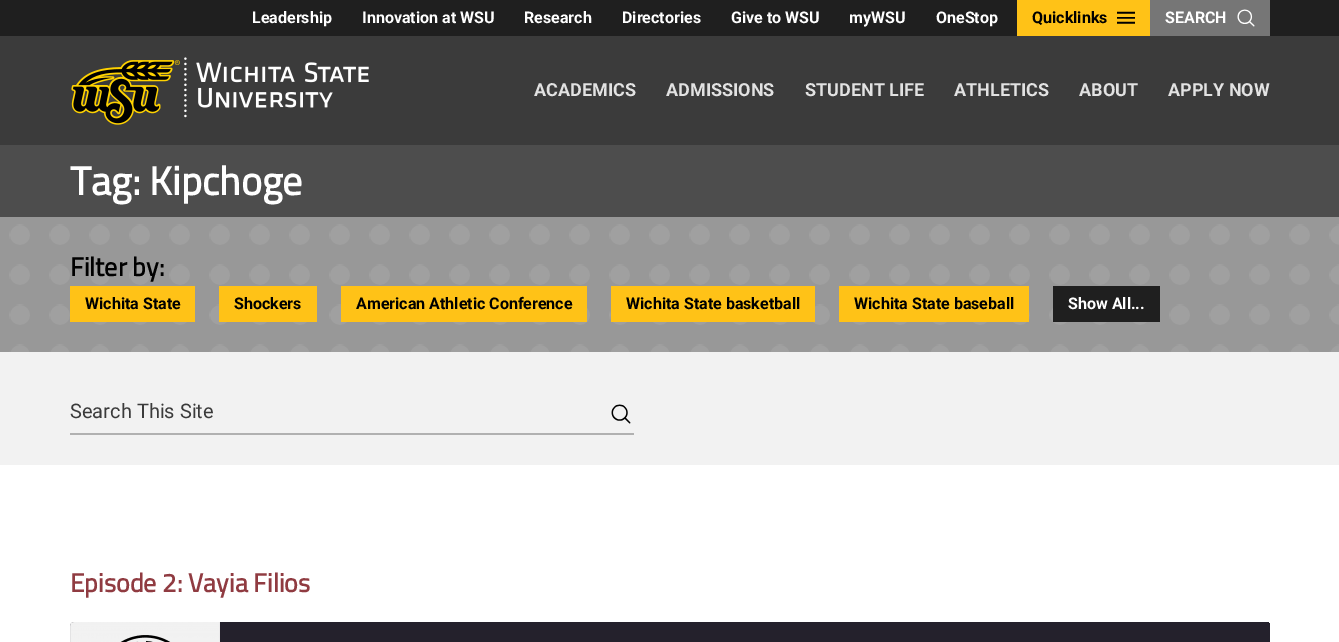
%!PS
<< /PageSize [1339 642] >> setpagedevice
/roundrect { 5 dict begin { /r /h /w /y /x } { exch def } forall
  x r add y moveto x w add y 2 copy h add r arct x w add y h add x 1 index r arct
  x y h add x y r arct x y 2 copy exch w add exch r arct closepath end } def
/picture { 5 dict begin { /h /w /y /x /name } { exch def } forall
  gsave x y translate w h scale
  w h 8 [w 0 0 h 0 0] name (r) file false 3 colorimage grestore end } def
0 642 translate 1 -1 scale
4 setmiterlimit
1 setgray
0 0 1339 642 rectfill
0.231 setgray
0 36 1339 109 rectfill
0.122 setgray
0 0 1339 36 rectfill
/Roboto-Bold [16 0 0 -16 0 0] selectfont
1 setgray
252 23 moveto (Leadership) show
362 23 moveto (Innovation at WSU) show
524 23 moveto (Research) show
622 23 moveto (Directories) show
731 23 moveto (Give to WSU) show
849 23 moveto (myWSU) show
936 23 moveto (OneStop) show
1 0.761 0.09 setrgbcolor
1017 0 133 36 rectfill
0 setgray
1032 23 moveto (Quicklinks) show
(img1.rgb) 1117 11 18 13 picture
0.463 setgray
1150 0 120 36 rectfill
1 setgray
1165 23 moveto (SEARCH) show
(img2.rgb) 1237 9 18 18 picture
(img3.rgb) 71 57 298 68 picture
/Roboto-Bold [18 0 0 -18 0 0] selectfont
0.886 setgray
534 96 moveto (ACADEMICS) show
666 96 moveto (ADMISSIONS) show
805 96 moveto (STUDENT LIFE) show
954 96 moveto (ATHLETICS) show
1079 96 moveto (ABOUT) show
1168 96 moveto (APPLY NOW) show
0.302 setgray
0 145 1339 72 rectfill
/TitilliumWeb-Bold [40 0 0 -40 0 0] selectfont
1 setgray
70 195 moveto (Tag: Kipchoge) show
0.596 setgray
0 217 1339 135 rectfill
(img4.rgb) 9 224 1330 128 picture
/TitilliumWeb-Bold [26 0 0 -26 0 0] selectfont
0 setgray
70 276 moveto (Filter by:) show
1 0.761 0.09 setrgbcolor
70 286 125 36 rectfill
/Roboto-Bold [16 0 0 -16 0 0] selectfont
0 setgray
85 309 moveto (Wichita State) show
1 0.761 0.09 setrgbcolor
219 286 98 36 rectfill
0 setgray
234 309 moveto (Shockers) show
1 0.761 0.09 setrgbcolor
341 286 246 36 rectfill
0 setgray
356 309 moveto (American Athletic Conference) show
1 0.761 0.09 setrgbcolor
611 286 204 36 rectfill
0 setgray
626 309 moveto (Wichita State basketball) show
1 0.761 0.09 setrgbcolor
839 286 190 36 rectfill
0 setgray
854 309 moveto (Wichita State baseball) show
0.122 setgray
1053 286 107 36 rectfill
1 setgray
1068 309 moveto (Show All...) show
0.949 setgray
0 352 1339 113 rectfill
0.694 setgray
70 433 564 2 rectfill
/Roboto-Regular [20 0 0 -20 0 0] selectfont
0.231 setgray
70 418 moveto (Search This Site) show
(img5.rgb) 611 404 20 20 picture
/TitilliumWeb-Bold [26 0 0 -26 0 0] selectfont
0.565 0.231 0.255 setrgbcolor
70 592 moveto (Episode 2: Vayia Filios) show
gsave 70 622 1200 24 4 roundrect clip newpath
<< /ShadingType 2 /ColorSpace /DeviceRGB /Coords [670 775 670 619] /Extend [true true] /Function << /FunctionType 3 /Domain [0 1] /Functions [<< /FunctionType 2 /Domain [0 1] /C0 [0.22 0.2 0.267] /C1 [0.22 0.2 0.267] /N 1 >> << /FunctionType 2 /Domain [0 1] /C0 [0.22 0.2 0.267] /C1 [0.141 0.129 0.173] /N 1 >> << /FunctionType 2 /Domain [0 1] /C0 [0.141 0.129 0.173] /C1 [0.141 0.129 0.173] /N 1 >>] /Bounds [0.01 0.78] /Encode [0 1 0 1 0 1] >> >> shfill grestore
(img6.rgb) 70 622 150 20 picture
showpage
